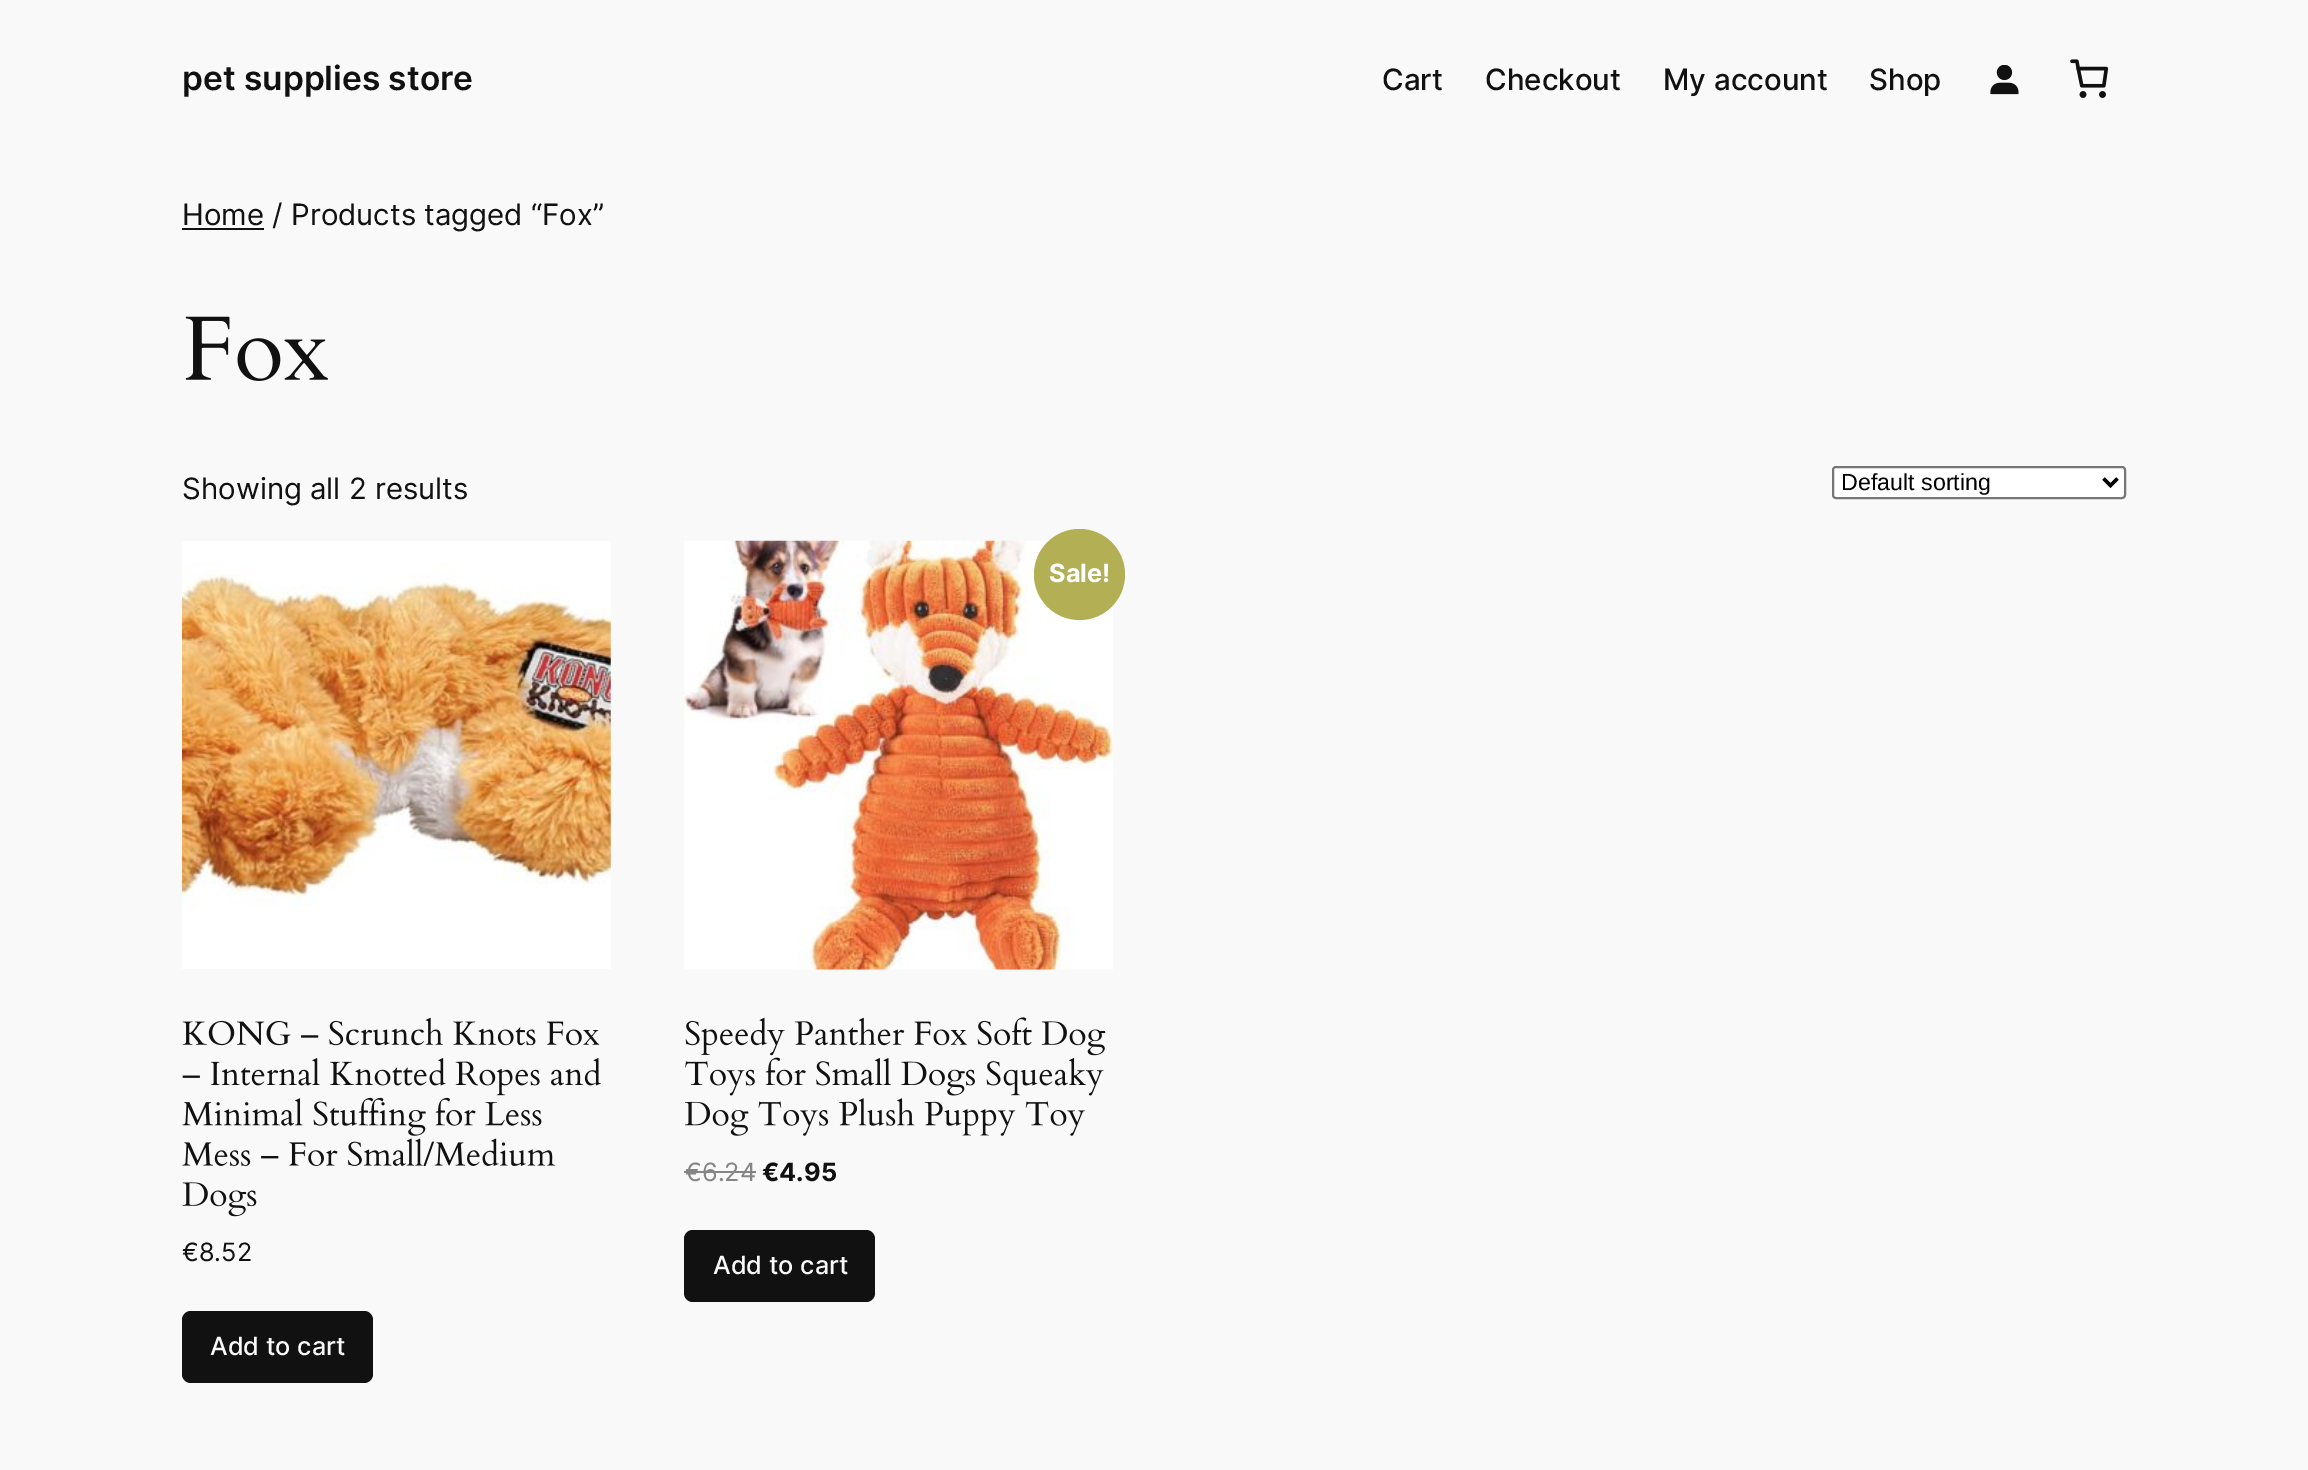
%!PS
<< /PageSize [2308 1470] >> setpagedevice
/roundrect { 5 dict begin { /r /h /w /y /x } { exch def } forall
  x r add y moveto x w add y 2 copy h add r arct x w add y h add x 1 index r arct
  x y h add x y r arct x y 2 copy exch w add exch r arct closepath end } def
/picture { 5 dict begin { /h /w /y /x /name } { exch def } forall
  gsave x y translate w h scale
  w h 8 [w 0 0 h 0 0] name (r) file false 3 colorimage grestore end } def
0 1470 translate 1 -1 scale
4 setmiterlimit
0.976 setgray
0 0 2308 1470 rectfill
/Inter-SemiBold [33.5 0 0 -33.5 0 0] selectfont
0.067 setgray
182 90 moveto (pet supplies store) show
/Inter-Medium [29.4 0 0 -29.4 0 0] selectfont
1382 90 moveto (Cart) show
1485 90 moveto (Checkout) show
1663 90 moveto (My account) show
1869 90 moveto (Shop) show
(img1.rgb) 1990 65 29 30 picture
(img2.rgb) 2070 59 39 39 picture
182 228 82 2 rectfill
/Inter-Regular [29.4 0 0 -29.4 0 0] selectfont
182 225 moveto (Home / Products tagged “Fox”) show
(img3.rgb) 185 316 143 65 picture
182 499 moveto (Showing all 2 results) show
1 setgray
1833 467 292 31 3 roundrect gsave fill grestore
0.463 setgray
2 setlinewidth
stroke
0 setgray
3.5 setlinewidth
newpath 2103.5 478.5 moveto 2110.5 485.5 lineto 2117.5 478.5 lineto stroke
/LiberationSans-Regular [23.25 0 0 -23.25 0 0] selectfont
1841 490 moveto (Default sorting) show
(img4.rgb) 684 540 429 430 picture
0.702 0.686 0.329 setrgbcolor
newpath 1079.5 574.5 45.5 0 360 arc closepath fill
/Inter-Bold [25.25 0 0 -25.25 0 0] selectfont
1 setgray
1049 582 moveto (Sale!) show
(img5.rgb) 685 1017 421 39 picture
(img6.rgb) 685 1057 419 39 picture
(img7.rgb) 685 1098 400 38 picture
/Inter-Regular [25.25 0 0 -25.25 0 0] selectfont
0.522 setgray
685 1181 moveto (€6.24) show
684 1171 72 2 rectfill
/Inter-Bold [25.25 0 0 -25.25 0 0] selectfont
0.067 setgray
762 1181 moveto (€4.95) show
684 1230 191 72 9 roundrect fill
/Inter-Medium [25.25 0 0 -25.25 0 0] selectfont
0.976 setgray
713 1274 moveto (Add to cart) show
(img8.rgb) 182 541 429 428 picture
(img9.rgb) 182 1017 418 29 picture
(img10.rgb) 182 1058 419 38 picture
(img11.rgb) 182 1097 360 39 picture
(img12.rgb) 182 1138 374 28 picture
(img13.rgb) 182 1182 75 35 picture
/Inter-Regular [25.25 0 0 -25.25 0 0] selectfont
0.067 setgray
182 1261 moveto (€8.52) show
182 1311 191 72 9 roundrect fill
/Inter-Medium [25.25 0 0 -25.25 0 0] selectfont
0.976 setgray
210 1355 moveto (Add to cart) show
showpage
